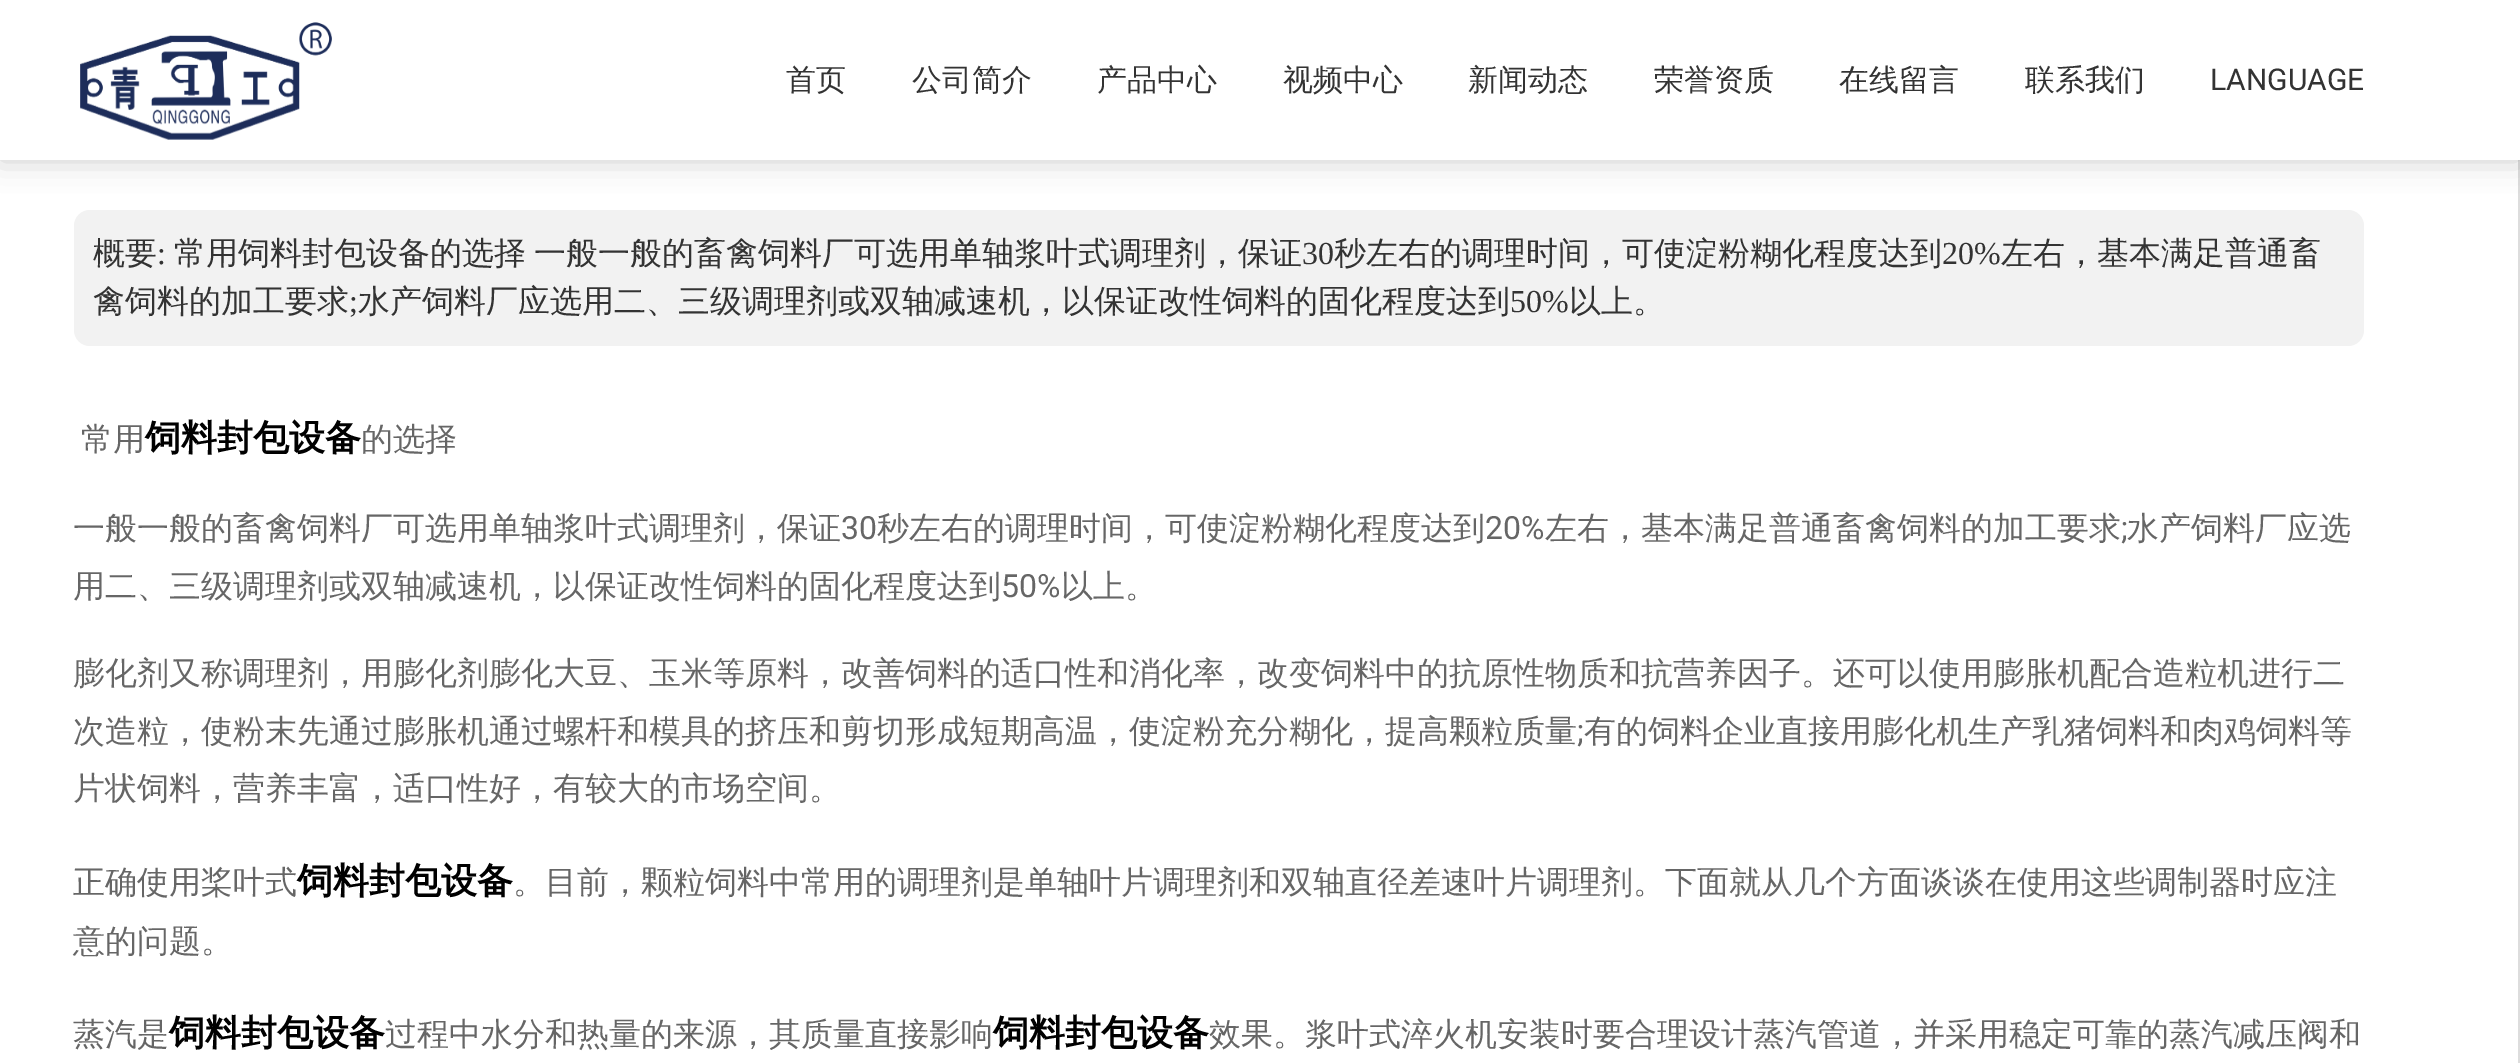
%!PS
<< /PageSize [2520 1063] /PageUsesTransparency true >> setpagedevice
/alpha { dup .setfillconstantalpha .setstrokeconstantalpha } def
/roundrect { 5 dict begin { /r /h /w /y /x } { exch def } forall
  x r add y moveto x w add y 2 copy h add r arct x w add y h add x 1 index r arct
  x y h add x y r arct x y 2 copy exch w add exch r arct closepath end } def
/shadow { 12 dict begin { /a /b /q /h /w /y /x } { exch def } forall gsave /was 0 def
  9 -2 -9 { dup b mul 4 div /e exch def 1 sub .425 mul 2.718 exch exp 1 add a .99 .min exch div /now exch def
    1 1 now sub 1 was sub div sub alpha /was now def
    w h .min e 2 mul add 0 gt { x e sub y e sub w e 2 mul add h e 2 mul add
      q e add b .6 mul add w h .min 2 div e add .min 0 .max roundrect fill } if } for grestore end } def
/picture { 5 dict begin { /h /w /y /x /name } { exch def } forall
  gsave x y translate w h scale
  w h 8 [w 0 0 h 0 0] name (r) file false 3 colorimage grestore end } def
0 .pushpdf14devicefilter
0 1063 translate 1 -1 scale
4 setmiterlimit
1 setgray
0 0 2520 1063 rectfill
0.867 setgray
2518 160 2 903 rectfill
0 setgray
0 0 2520 160 0 15 0.2 shadow
1 setgray
0 0 2520 160 rectfill
(img1.rgb) 80 22 252 118 picture
/WenQuanYiZenHei-Medium [30 0 0 -30 0 0] selectfont
0.2 setgray
786 90 moveto (首页) show
912 90 moveto (公司简介) show
1097 90 moveto (产品中心) show
1283 90 moveto (视频中心) show
1468 90 moveto (新闻动态) show
1654 90 moveto (荣誉资质) show
1839 90 moveto (在线留言) show
2025 90 moveto (联系我们) show
/Roboto-Regular [30 0 0 -30 0 0] selectfont
2210 90 moveto (LANGUAGE) show
0.949 setgray
74 210 2290 136 16 roundrect fill
/WenQuanYiZenHei-Medium [32 0 0 -32 0 0] selectfont
0.2 setgray
93 264 moveto (概要) show
/LiberationSerif-Regular [32 0 0 -32 0 0] selectfont
157 264 moveto (:) show
/WenQuanYiZenHei-Medium [32 0 0 -32 0 0] selectfont
174 264 moveto (常用饲料封包设备的选择) show
534 264 moveto (一般一般的畜禽饲料厂可选用单轴浆叶式调理剂，保证) show
/LiberationSerif-Regular [32 0 0 -32 0 0] selectfont
1302 264 moveto (30) show
/WenQuanYiZenHei-Medium [32 0 0 -32 0 0] selectfont
1334 264 moveto (秒左右的调理时间，可使淀粉糊化程度达到) show
/LiberationSerif-Regular [32 0 0 -32 0 0] selectfont
1942 264 moveto (20%) show
/WenQuanYiZenHei-Medium [32 0 0 -32 0 0] selectfont
2001 264 moveto (左右，基本满足普通畜) show
93 312 moveto (禽饲料的加工要求) show
/LiberationSerif-Regular [32 0 0 -32 0 0] selectfont
349 312 moveto (;) show
/WenQuanYiZenHei-Medium [32 0 0 -32 0 0] selectfont
358 312 moveto (水产饲料厂应选用二、三级调理剂或双轴减速机，以保证改性饲料的固化程度达到) show
/LiberationSerif-Regular [32 0 0 -32 0 0] selectfont
1510 312 moveto (50%) show
/WenQuanYiZenHei-Medium [32 0 0 -32 0 0] selectfont
1569 312 moveto (以上。) show
0.4 setgray
81 450 moveto (常用) show
/WenQuanYiZenHei-Bold [36 0 0 -36 0 0] selectfont
0 setgray
145 450 moveto (饲料封包设备) show
/WenQuanYiZenHei-Medium [32 0 0 -32 0 0] selectfont
0.4 setgray
361 450 moveto (的选择) show
73 539 moveto (一般一般的畜禽饲料厂可选用单轴浆叶式调理剂，保证) show
/Roboto-Regular [32 0 0 -32 0 0] selectfont
841 539 moveto (30) show
/WenQuanYiZenHei-Medium [32 0 0 -32 0 0] selectfont
877 539 moveto (秒左右的调理时间，可使淀粉糊化程度达到) show
/Roboto-Regular [32 0 0 -32 0 0] selectfont
1485 539 moveto (20%) show
/WenQuanYiZenHei-Medium [32 0 0 -32 0 0] selectfont
1545 539 moveto (左右，基本满足普通畜禽饲料的加工要求) show
/Roboto-Regular [32 0 0 -32 0 0] selectfont
2121 539 moveto (;) show
/WenQuanYiZenHei-Medium [32 0 0 -32 0 0] selectfont
2127 539 moveto (水产饲料厂应选) show
73 597 moveto (用二、三级调理剂或双轴减速机，以保证改性饲料的固化程度达到) show
/Roboto-Regular [32 0 0 -32 0 0] selectfont
1001 597 moveto (50%) show
/WenQuanYiZenHei-Medium [32 0 0 -32 0 0] selectfont
1061 597 moveto (以上。) show
73 684 moveto (膨化剂又称调理剂，用膨化剂膨化大豆、玉米等原料，改善饲料的适口性和消化率，改变饲料中的抗原性物质和抗营养因子。还可以使用膨胀机配合造粒机进行二) show
73 742 moveto (次造粒，使粉末先通过膨胀机通过螺杆和模具的挤压和剪切形成短期高温，使淀粉充分糊化，提高颗粒质量) show
/Roboto-Regular [32 0 0 -32 0 0] selectfont
1577 742 moveto (;) show
/WenQuanYiZenHei-Medium [32 0 0 -32 0 0] selectfont
1584 742 moveto (有的饲料企业直接用膨化机生产乳猪饲料和肉鸡饲料等) show
73 799 moveto (片状饲料，营养丰富，适口性好，有较大的市场空间。) show
73 893 moveto (正确使用桨叶式) show
/WenQuanYiZenHei-Bold [36 0 0 -36 0 0] selectfont
0 setgray
297 893 moveto (饲料封包设备) show
/WenQuanYiZenHei-Medium [32 0 0 -32 0 0] selectfont
0.4 setgray
513 893 moveto (。目前，颗粒饲料中常用的调理剂是单轴叶片调理剂和双轴直径差速叶片调理剂。下面就从几个方面谈谈在使用这些调制器时应注) show
73 952 moveto (意的问题。) show
73 1045 moveto (蒸汽是) show
/WenQuanYiZenHei-Bold [36 0 0 -36 0 0] selectfont
0 setgray
169 1045 moveto (饲料封包设备) show
/WenQuanYiZenHei-Medium [32 0 0 -32 0 0] selectfont
0.4 setgray
385 1045 moveto (过程中水分和热量的来源，其质量直接影响) show
/WenQuanYiZenHei-Bold [36 0 0 -36 0 0] selectfont
0 setgray
993 1045 moveto (饲料封包设备) show
/WenQuanYiZenHei-Medium [32 0 0 -32 0 0] selectfont
0.4 setgray
1209 1045 moveto (效果。浆叶式淬火机安装时要合理设计蒸汽管道，并采用稳定可靠的蒸汽减压阀和) show
.poppdf14devicefilter showpage
